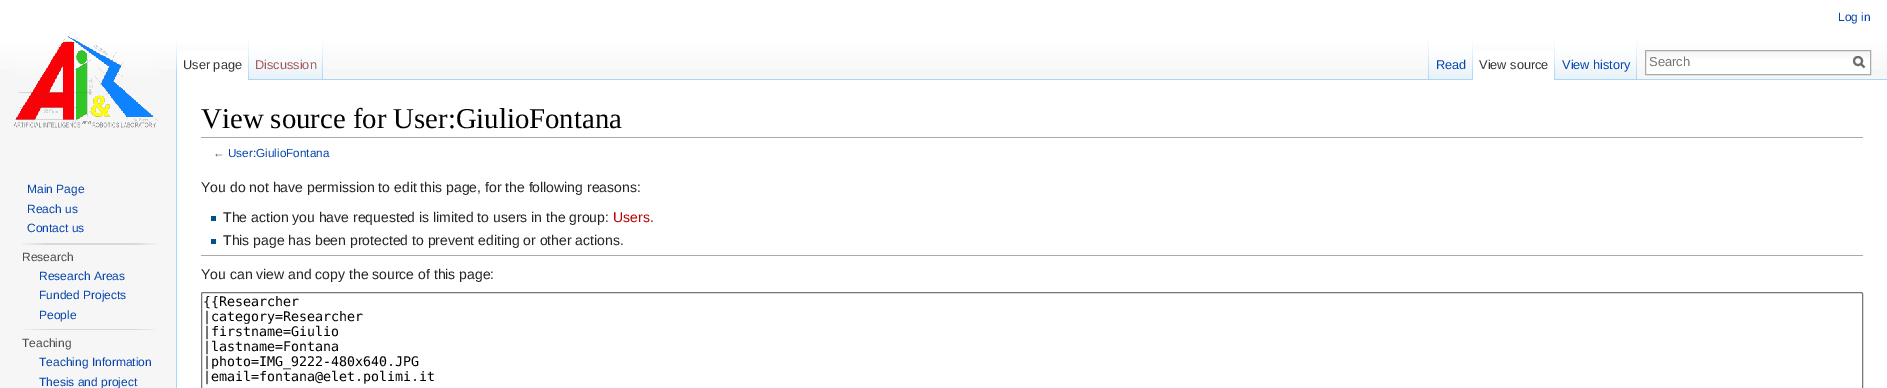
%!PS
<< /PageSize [1887 388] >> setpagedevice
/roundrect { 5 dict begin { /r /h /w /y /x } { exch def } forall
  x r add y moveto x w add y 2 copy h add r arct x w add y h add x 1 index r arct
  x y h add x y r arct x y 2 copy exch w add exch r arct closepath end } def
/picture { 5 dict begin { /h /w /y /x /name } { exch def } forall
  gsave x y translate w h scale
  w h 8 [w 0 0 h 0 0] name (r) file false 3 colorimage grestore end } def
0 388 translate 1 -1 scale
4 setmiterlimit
0.965 setgray
0 0 1887 388 rectfill
gsave newpath 0 0 moveto 1887 0 lineto 1887 69 lineto 0 69 lineto closepath clip newpath
<< /ShadingType 2 /ColorSpace /DeviceRGB /Coords [944 0 944 80] /Extend [true true] /Function << /FunctionType 3 /Domain [0 1] /Functions [<< /FunctionType 2 /Domain [0 1] /C0 [1 1 1] /C1 [1 1 1] /N 1 >> << /FunctionType 2 /Domain [0 1] /C0 [1 1 1] /C1 [0.965 0.965 0.965] /N 1 >>] /Bounds [0.5] /Encode [0 1 0 1] >> >> shfill grestore
/LiberationSans-Regular [12 0 0 -12 0 0] selectfont
0.024 0.271 0.678 setrgbcolor
1838 21 moveto (Log in) show
(img1.rgb) 176 40 1 39 picture
1 setgray
177 51 71 29 rectfill
(img2.rgb) 248 40 1 40 picture
/LiberationSans-Regular [12.75 0 0 -12.75 0 0] selectfont
0.2 setgray
183 69 moveto (User page) show
(img3.rgb) 249 40 74 40 picture
(img4.rgb) 322 40 1 39 picture
0.647 0.345 0.345 setrgbcolor
255 69 moveto (Discussion) show
(img1.rgb) 1428 40 1 39 picture
0.655 0.843 0.976 setrgbcolor
323 79 1564 1 rectfill
(img5.rgb) 1429 40 44 40 picture
(img4.rgb) 1472 40 1 39 picture
0.024 0.271 0.678 setrgbcolor
1436 69 moveto (Read) show
1 setgray
1473 51 81 29 rectfill
(img2.rgb) 1554 40 1 40 picture
0.2 setgray
1479 69 moveto (View source) show
(img6.rgb) 1555 40 82 40 picture
(img4.rgb) 1636 40 1 39 picture
0.024 0.271 0.678 setrgbcolor
1562 69 moveto (View history) show
1 setgray
1646 59 224 15 rectfill
(img7.rgb) 1646 51 224 8 picture
0.667 setgray
1645.5 50.5 225 24 rectstroke
/LiberationSans-Regular [13 0 0 -13 0 0] selectfont
0.459 setgray
1649 66 moveto (Search) show
0.424 setgray
2 setlinewidth
newpath 1864.5 67.5 moveto 1860.5 63.5 lineto stroke
newpath 1858 61 4 0 360 arc closepath stroke
(img8.rgb) 14 36 144 92 picture
/LiberationSans-Regular [12 0 0 -12 0 0] selectfont
0.024 0.271 0.678 setrgbcolor
27 193 moveto (Main Page) show
27 213 moveto (Reach us) show
27 232 moveto (Contact us) show
(img9.rgb) 22 243 135 2 picture
0.302 setgray
22 261 moveto (Research) show
0.024 0.271 0.678 setrgbcolor
39 280 moveto (Research Areas) show
39 299 moveto (Funded Projects) show
39 319 moveto (People) show
(img10.rgb) 22 329 135 1 picture
0.302 setgray
22 347 moveto (Teaching) show
0.024 0.271 0.678 setrgbcolor
39 366 moveto (Teaching Information) show
39 386 moveto (Thesis and project) show
1 setgray
177 80 1710 308 rectfill
0.655 0.843 0.976 setrgbcolor
176 79 1 309 rectfill
0.667 setgray
201 137 1662 1 rectfill
/LiberationSerif-Regular [28.75 0 0 -28.75 0 0] selectfont
0 setgray
201 128 moveto (View source for User:GiulioFontana) show
/LiberationSans-Regular [11.75 0 0 -11.75 0 0] selectfont
0.329 setgray
213 157 moveto (←) show
0.024 0.271 0.678 setrgbcolor
228 157 moveto (User:GiulioFontana) show
/LiberationSans-Regular [14 0 0 -14 0 0] selectfont
0.145 setgray
201 192 moveto (You do not have permission to edit this page, for the following reasons:) show
0 0.322 0.549 setrgbcolor
211 216 5 5 rectfill
0.145 setgray
223 222 moveto (The action you have requested is limited to users in the group:) show
0.729 0 0 setrgbcolor
613 222 moveto (Users) show
0.145 setgray
650 222 moveto (.) show
0 0.322 0.549 setrgbcolor
211 239 5 5 rectfill
0.145 setgray
223 245 moveto (This page has been protected to prevent editing or other actions.) show
0.667 setgray
201 255 1662 1 rectfill
0.145 setgray
201 279 moveto (You can view and copy the source of this page:) show
0.463 setgray
1 setlinewidth
201.5 292.5 1661 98 1.5 roundrect stroke
/DejaVuSansMono-Regular [13.3 0 0 -13.3 0 0] selectfont
0 setgray
203 306 moveto ({{Researcher) show
203 321 moveto (|category=Researcher) show
203 336 moveto (|firstname=Giulio) show
203 351 moveto (|lastname=Fontana) show
203 366 moveto (|photo=IMG_9222-480x640.JPG) show
203 381 moveto (|email=fontana@elet.polimi.it) show
showpage
